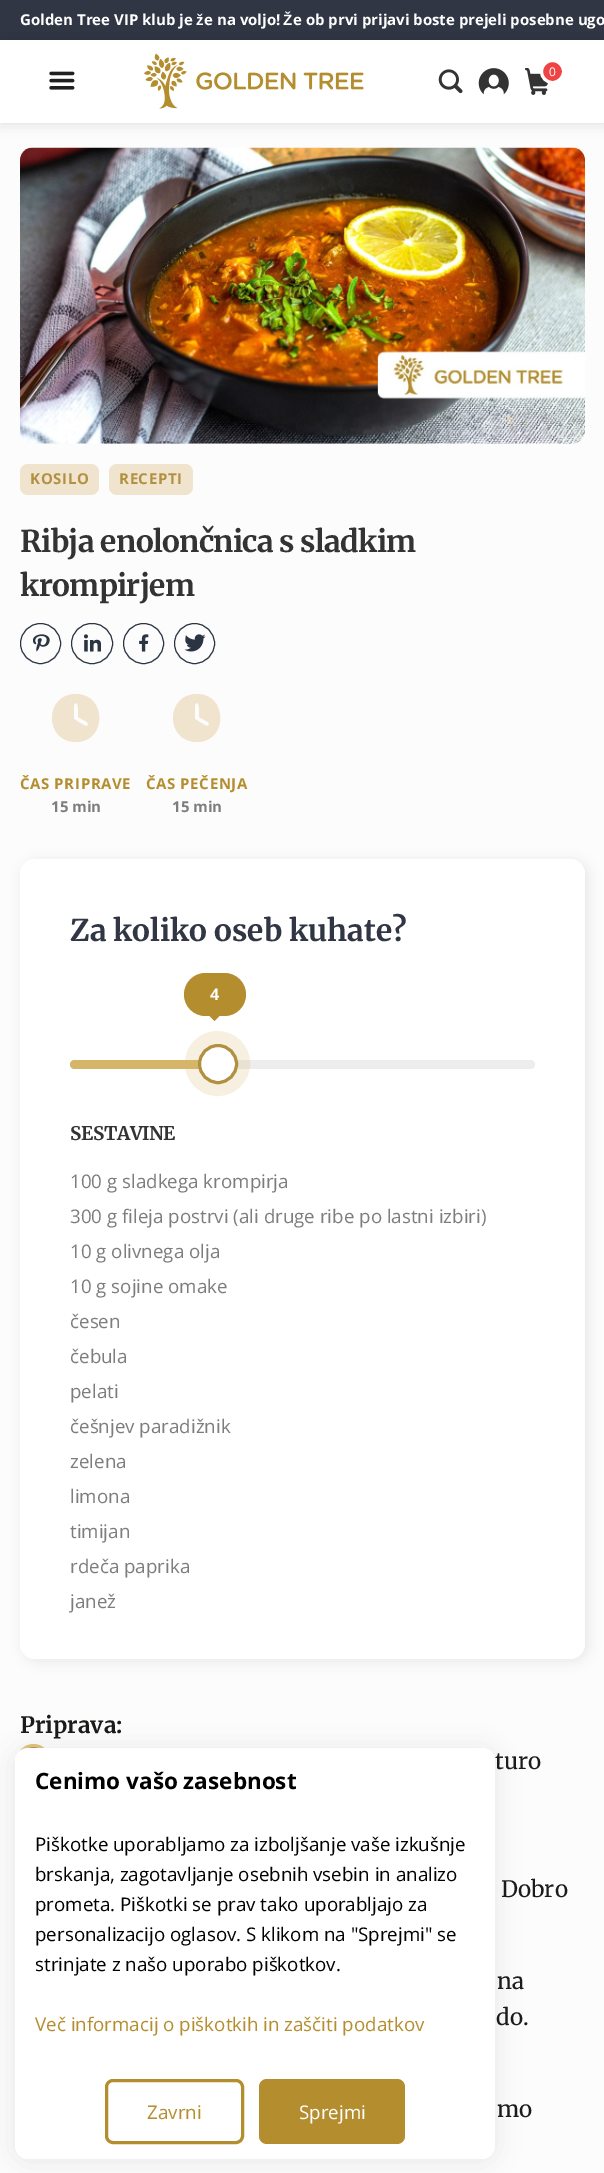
%!PS
<< /PageSize [604 2173] /PageUsesTransparency true >> setpagedevice
/alpha { dup .setfillconstantalpha .setstrokeconstantalpha } def
/roundrect { 5 dict begin { /r /h /w /y /x } { exch def } forall
  x r add y moveto x w add y 2 copy h add r arct x w add y h add x 1 index r arct
  x y h add x y r arct x y 2 copy exch w add exch r arct closepath end } def
/shadow { 12 dict begin { /a /b /q /h /w /y /x } { exch def } forall gsave /was 0 def
  9 -2 -9 { dup b mul 4 div /e exch def 1 sub .425 mul 2.718 exch exp 1 add a .99 .min exch div /now exch def
    1 1 now sub 1 was sub div sub alpha /was now def
    w h .min e 2 mul add 0 gt { x e sub y e sub w e 2 mul add h e 2 mul add
      q e add b .6 mul add w h .min 2 div e add .min 0 .max roundrect fill } if } for grestore end } def
/picture { 5 dict begin { /h /w /y /x /name } { exch def } forall
  gsave x y translate w h scale
  w h 8 [w 0 0 h 0 0] name (r) file false 3 colorimage grestore end } def
0 .pushpdf14devicefilter
0 2173 translate 1 -1 scale
4 setmiterlimit
0.988 setgray
0 0 604 2173 rectfill
0.188 0.212 0.263 setrgbcolor
0 0 604 40 rectfill
0 setgray
0 40 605 83 0 7.5 0.12 shadow
/OpenSans-Bold [15 0 0 -15 0 0] selectfont
1 setgray
20 25 moveto (Golden Tree VIP klub je) show
/LiberationSans-Bold [15 0 0 -15 0 0] selectfont
196 25 moveto (ž) show
/OpenSans-Bold [15 0 0 -15 0 0] selectfont
204 25 moveto (e na voljo!) show
/LiberationSans-Bold [15 0 0 -15 0 0] selectfont
283 25 moveto (Ž) show
/OpenSans-Bold [15 0 0 -15 0 0] selectfont
293 25 moveto (e ob prvi prijavi boste prejeli posebne ugo) show
0 40 604 83 rectfill
(img1.rgb) 49 71 26 19 picture
(img2.rgb) 144 53 220 56 picture
(img3.rgb) 438 69 25 25 picture
(img4.rgb) 478 68 31 27 picture
(img5.rgb) 525 68 23 27 picture
0.937 0.267 0.267 setrgbcolor
newpath 552.5 71.5 11 0 360 arc closepath gsave fill grestore
1 setgray
3 setlinewidth
stroke
/OpenSans-Regular [12 0 0 -12 0 0] selectfont
549 76 moveto (0) show
(img6.rgb) 20 147 565 297 picture
0.941 0.894 0.812 setrgbcolor
20 464 79 31 8 roundrect fill
/OpenSans-Bold [15 0 0 -15 0 0] selectfont
0.694 0.569 0.255 setrgbcolor
30 484 moveto 0.6 0 (KOSILO) ashow
0.941 0.894 0.812 setrgbcolor
109 464 84 31 8 roundrect fill
0.694 0.569 0.255 setrgbcolor
119 484 moveto 0.6 0 (RECEPTI) ashow
/Merriweather-Bold [30 0 0 -30 0 0] selectfont
0.2 setgray
20 552 moveto -0.6 0 (Ribja enolon) ashow
/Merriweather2-Bold [30 0 0 -30 0 0] selectfont
199 552 moveto -0.6 0 (č) ashow
/Merriweather-Bold [30 0 0 -30 0 0] selectfont
213 552 moveto -0.6 0 (nica s sladkim) ashow
20 596 moveto -0.6 0 (krompirjem) ashow
0.169 0.204 0.259 setrgbcolor
1 setlinewidth
newpath 40.5 643.5 20 0 360 arc closepath stroke
(img7.rgb) 33 634 17 18 picture
71.5 623.5 41 40 20 roundrect stroke
(img8.rgb) 84 634 17 18 picture
newpath 143.5 643.5 20 0 360 arc closepath stroke
(img9.rgb) 139 634 10 18 picture
newpath 194.5 643.5 20 0 360 arc closepath stroke
(img10.rgb) 184 634 22 18 picture
0.941 0.894 0.812 setrgbcolor
newpath 76 694 moveto 44 694 44 742 76 742 curveto 107 742 107 694 76 694 curveto closepath 76 703 moveto 79 703 78 715 78 717 curveto 87 722 lineto 88 724 lineto 88 729 81 723 80 723 curveto 74 719 lineto 74 709 lineto 74 708 73 703 76 703 curveto closepath fill
/OpenSans-Bold [15 0 0 -15 0 0] selectfont
0.706 0.553 0.184 setrgbcolor
20 789 moveto 0.6 0 (ČAS PRIPRAVE) ashow
0.49 setgray
51 812 moveto (15 min) show
0.941 0.894 0.812 setrgbcolor
newpath 197 694 moveto 165 694 165 742 197 742 curveto 228 742 228 694 197 694 curveto closepath 197 703 moveto 200 703 199 715 199 717 curveto 208 722 lineto 209 724 lineto 209 729 202 723 201 723 curveto 195 719 lineto 195 709 lineto 195 708 194 703 197 703 curveto closepath fill
0.706 0.553 0.184 setrgbcolor
146 789 moveto 0.6 0 (ČAS PEČENJA) ashow
0.49 setgray
172 812 moveto (15 min) show
0 setgray
23 861 565 800 15 6 0.08 shadow
1 setgray
20 859 565 800 15 roundrect fill
/Merriweather-Bold [30 0 0 -30 0 0] selectfont
0.188 0.212 0.263 setrgbcolor
70 941 moveto (Za koliko oseb kuhate?) show
0.706 0.553 0.184 setrgbcolor
184 973 62 43 21.5 roundrect fill
/OpenSans-Bold [16 0 0 -16 0 0] selectfont
1 setgray
210 1000 moveto (4) show
0.706 0.553 0.184 setrgbcolor
newpath 214.5 1007 moveto 221.5 1014 lineto 214.5 1021 lineto 207.5 1014 lineto closepath fill
0.929 setgray
70 1060 465 9 4.5 roundrect fill
0.835 0.71 0.408 setrgbcolor
newpath 74.5 1060 moveto 210 1060 lineto 210 1069 lineto 74.5 1069 lineto 72 1069 70 1067 70 1064.5 curveto 70 1062 72 1060 74.5 1060 curveto closepath fill
0.2 alpha
13 setlinewidth
newpath 217.5 1063.5 26 0 360 arc closepath stroke
1 alpha
1 setgray
newpath 218 1064 18.5 0 360 arc closepath gsave fill grestore
0.694 0.569 0.255 setrgbcolor
3 setlinewidth
stroke
/Merriweather2-Bold [18.75 0 0 -18.75 0 0] selectfont
0.2 setgray
70 1140 moveto -0.4 0 (SESTAVINE) ashow
/OpenSans-Regular [18.75 0 0 -18.75 0 0] selectfont
0.49 setgray
70 1188 moveto (100 g sladkega krompirja) show
70 1223 moveto (300 g fileja postrvi \(ali druge ribe po lastni izbiri\)) show
70 1258 moveto (10 g olivnega olja) show
70 1293 moveto (10 g sojine omake) show
70 1328 moveto (česen) show
70 1363 moveto (čebula) show
70 1398 moveto (pelati) show
70 1433 moveto (češnjev paradižnik) show
70 1468 moveto (zelena) show
70 1503 moveto (limona) show
70 1538 moveto (timijan) show
70 1573 moveto (rdeča paprika) show
70 1608 moveto (janež) show
/Merriweather2-Bold [22.5 0 0 -22.5 0 0] selectfont
0.106 0.106 0.098 setrgbcolor
20 1733 moveto (Priprava:) show
0.706 0.553 0.184 setrgbcolor
newpath 33.5 1761.5 16 0 360 arc closepath gsave fill grestore
0.882 0.769 0.498 setrgbcolor
stroke
/Merriweather-Regular [22.5 0 0 -22.5 0 0] selectfont
0.106 0.106 0.098 setrgbcolor
495 1769 moveto (turo) show
501 1897 moveto (Dobro) show
497 1989 moveto (na) show
496 2025 moveto (do.) show
497 2117 moveto (mo) show
0 setgray
15 1750 480 411 13 12.5 0.08 shadow
1 setgray
15 1748 480 411 13 roundrect fill
/OpenSans-Bold [22.5 0 0 -22.5 0 0] selectfont
0 setgray
35 1789 moveto (Cenimo vašo zasebnost) show
/OpenSans-Regular [18.75 0 0 -18.75 0 0] selectfont
35 1851 moveto (Piškotke uporabljamo za izboljšanje vaše izkušnje) show
35 1881 moveto (brskanja, zagotavljanje osebnih vsebin in analizo) show
35 1911 moveto (prometa. Piškotki se prav tako uporabljajo za) show
35 1941 moveto (personalizacijo oglasov. S klikom na "Sprejmi" se) show
35 1971 moveto (strinjate z našo uporabo piškotkov.) show
0.706 0.553 0.184 setrgbcolor
35 2031 moveto (Več informacij o piškotkih in zaščiti podatkov) show
106.5 2080.5 136 62 6.5 roundrect stroke
147 2119 moveto (Zavrni) show
259 2079 146 65 8 roundrect fill
1 setgray
299 2119 moveto (Sprejmi) show
.poppdf14devicefilter showpage
